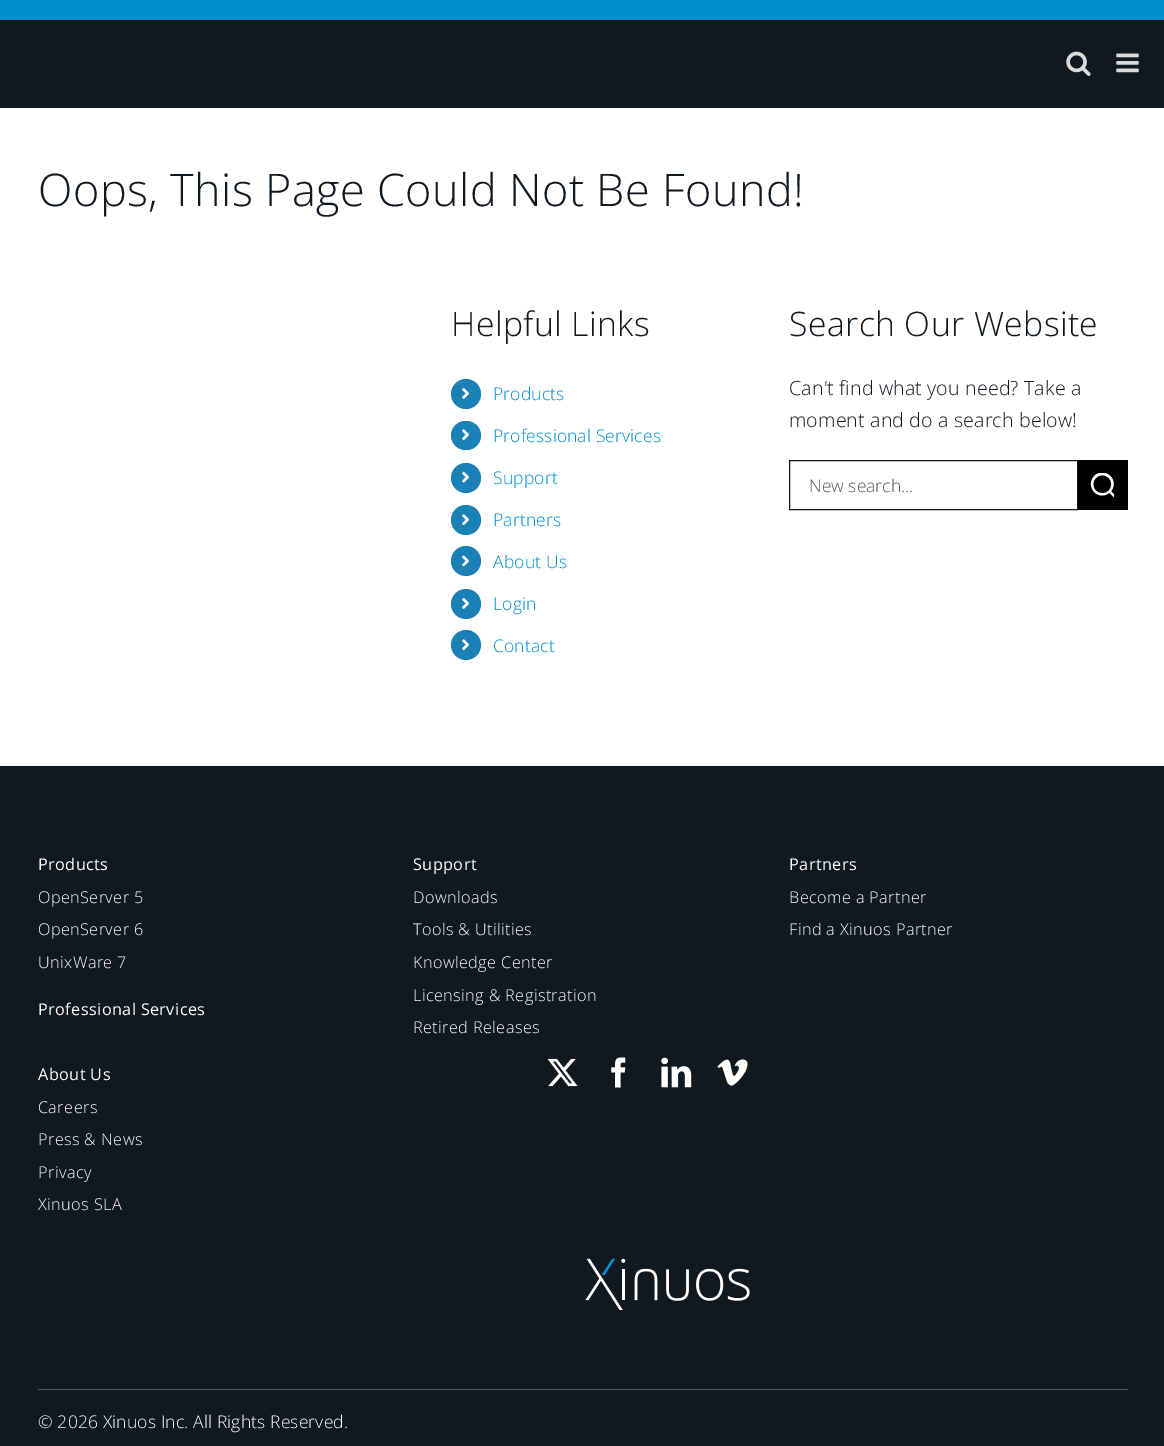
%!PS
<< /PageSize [1164 1446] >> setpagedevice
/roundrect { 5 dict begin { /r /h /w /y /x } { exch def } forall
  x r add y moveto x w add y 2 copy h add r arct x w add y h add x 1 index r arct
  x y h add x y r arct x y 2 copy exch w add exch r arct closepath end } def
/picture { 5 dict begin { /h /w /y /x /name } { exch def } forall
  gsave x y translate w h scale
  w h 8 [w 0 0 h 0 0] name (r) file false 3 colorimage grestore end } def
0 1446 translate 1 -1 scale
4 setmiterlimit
1 setgray
0 0 1164 1446 rectfill
0 0.557 0.812 setrgbcolor
0 0 1164 20 rectfill
0.063 0.094 0.125 setrgbcolor
0 20 1164 88 rectfill
(img1.rgb) 1066 51 25 25 picture
(img2.rgb) 1116 53 23 20 picture
/OpenSans-Light [45 0 0 -45 0 0] selectfont
38 206 moveto 0.4 0 (Oops, This Page Could Not Be Found!) ashow
/OpenSans-Light [33.75 0 0 -33.75 0 0] selectfont
451 336 moveto 0.4 0 (Helpful Links) ashow
0.102 0.502 0.714 setrgbcolor
newpath 466 394 15 0 360 arc closepath fill
(img3.rgb) 462 388 8 11 picture
/OpenSans-Light [17.5 0 0 -17.5 0 0] selectfont
0 0.557 0.812 setrgbcolor
493 400 moveto 0.15 0 (Products) ashow
0.102 0.502 0.714 setrgbcolor
451 421 30 29 14.5 roundrect fill
(img4.rgb) 462 429 8 12 picture
0 0.557 0.812 setrgbcolor
493 442 moveto 0.15 0 (Professional Services) ashow
0.102 0.502 0.714 setrgbcolor
newpath 466 478 15 0 360 arc closepath fill
(img5.rgb) 462 471 8 12 picture
0 0.557 0.812 setrgbcolor
493 484 moveto 0.15 0 (Support) ashow
0.102 0.502 0.714 setrgbcolor
newpath 466 520 15 0 360 arc closepath fill
(img4.rgb) 462 514 8 12 picture
0 0.557 0.812 setrgbcolor
493 526 moveto 0.15 0 (Partners) ashow
0.102 0.502 0.714 setrgbcolor
newpath 466 561 15 0 360 arc closepath fill
(img6.rgb) 462 555 8 12 picture
0 0.557 0.812 setrgbcolor
493 568 moveto 0.15 0 (About Us) ashow
0.102 0.502 0.714 setrgbcolor
newpath 466 604 15 0 360 arc closepath fill
(img3.rgb) 462 598 8 11 picture
0 0.557 0.812 setrgbcolor
493 610 moveto 0.15 0 (Login) ashow
0.102 0.502 0.714 setrgbcolor
newpath 466 645 15 0 360 arc closepath fill
(img4.rgb) 462 639 8 12 picture
0 0.557 0.812 setrgbcolor
493 652 moveto 0.15 0 (Contact) ashow
/OpenSans-Light [33.75 0 0 -33.75 0 0] selectfont
0.063 0.094 0.125 setrgbcolor
789 336 moveto 0.4 0 (Search Our Website) ashow
/OpenSans-Light [19.6 0 0 -19.6 0 0] selectfont
789 395 moveto 0.15 0 (Can't find what you need? Take a) ashow
789 427 moveto 0.15 0 (moment and do a search below!) ashow
789.5 460.5 288 49 rectstroke
/OpenSans-Light [17.5 0 0 -17.5 0 0] selectfont
0.353 0.337 0.353 setrgbcolor
809 492 moveto (New search...) show
0 setgray
1078 460 50 50 rectfill
(img7.rgb) 1090 473 25 25 picture
0.063 0.094 0.125 setrgbcolor
0 766 1164 680 rectfill
/OpenSans-Regular [16.25 0 0 -16.25 0 0] selectfont
1 setgray
38 870 moveto 0.4 0 (Products) ashow
/OpenSans-Light [16.25 0 0 -16.25 0 0] selectfont
38 903 moveto 0.4 0 (OpenServer 5) ashow
38 935 moveto 0.4 0 (OpenServer 6) ashow
38 968 moveto 0.4 0 (UnixWare 7) ashow
/OpenSans-Regular [16.25 0 0 -16.25 0 0] selectfont
38 1015 moveto 0.4 0 (Professional Services) ashow
413 870 moveto 0.4 0 (Support) ashow
/OpenSans-Light [16.25 0 0 -16.25 0 0] selectfont
413 903 moveto 0.4 0 (Downloads) ashow
413 935 moveto 0.4 0 (Tools & Utilities) ashow
413 968 moveto 0.4 0 (Knowledge Center) ashow
413 1001 moveto 0.4 0 (Licensing & Registration) ashow
413 1033 moveto 0.4 0 (Retired Releases) ashow
/OpenSans-Regular [16.25 0 0 -16.25 0 0] selectfont
789 870 moveto 0.4 0 (Partners) ashow
/OpenSans-Light [16.25 0 0 -16.25 0 0] selectfont
789 903 moveto 0.4 0 (Become a Partner) ashow
789 935 moveto 0.4 0 (Find a Xinuos Partner) ashow
/OpenSans-Regular [16.25 0 0 -16.25 0 0] selectfont
38 1080 moveto 0.4 0 (About Us) ashow
/OpenSans-Light [16.25 0 0 -16.25 0 0] selectfont
38 1113 moveto 0.4 0 (Careers) ashow
38 1145 moveto 0.4 0 (Press & News) ashow
38 1178 moveto 0.4 0 (Privacy) ashow
38 1210 moveto 0.4 0 (Xinuos SLA) ashow
(img8.rgb) 547 1058 31 29 picture
(img9.rgb) 611 1057 15 31 picture
(img10.rgb) 661 1057 31 31 picture
(img11.rgb) 717 1059 31 27 picture
(img12.rgb) 585 1258 165 52 picture
0.353 0.337 0.353 setrgbcolor
38 1389 1090 1 rectfill
/OpenSans-Light [17.5 0 0 -17.5 0 0] selectfont
1 setgray
38 1428 moveto 0.15 0 (© 2026 Xinuos Inc. All Rights Reserved.) ashow
showpage
